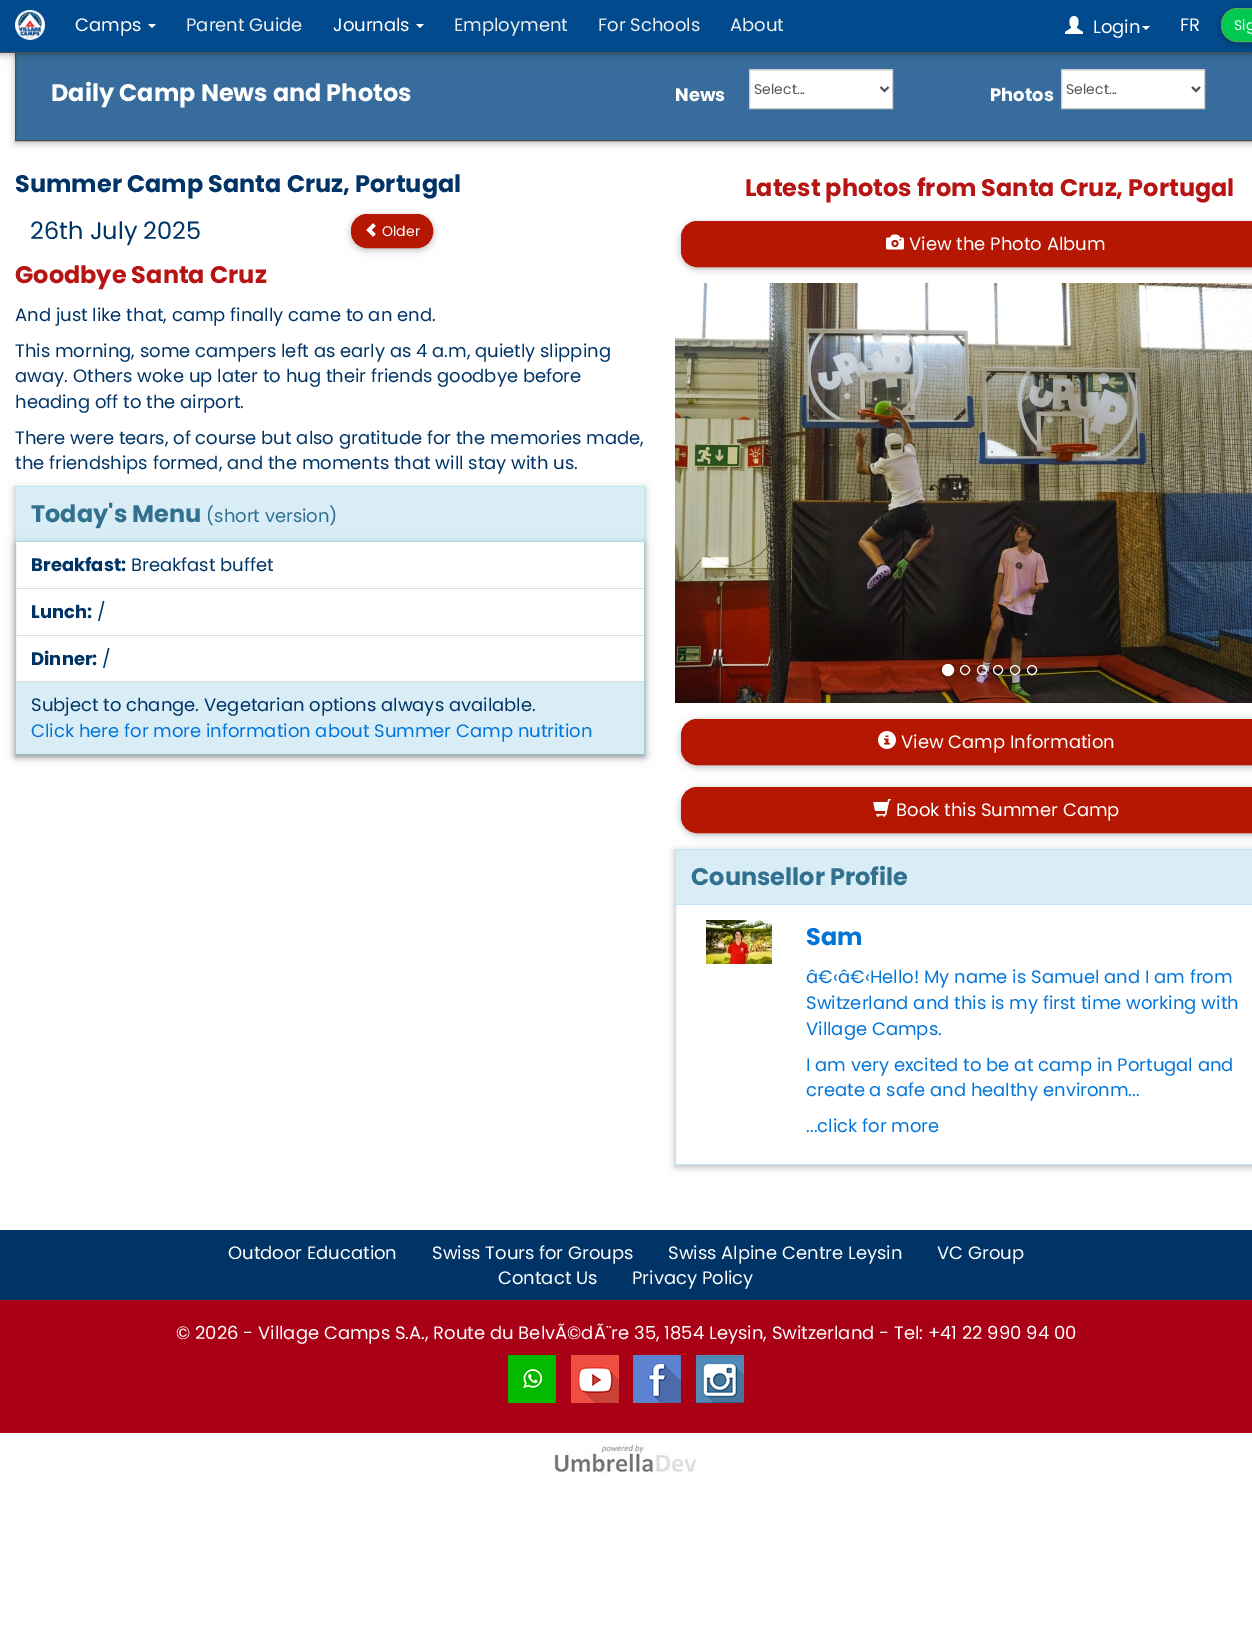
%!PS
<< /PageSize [1252 1639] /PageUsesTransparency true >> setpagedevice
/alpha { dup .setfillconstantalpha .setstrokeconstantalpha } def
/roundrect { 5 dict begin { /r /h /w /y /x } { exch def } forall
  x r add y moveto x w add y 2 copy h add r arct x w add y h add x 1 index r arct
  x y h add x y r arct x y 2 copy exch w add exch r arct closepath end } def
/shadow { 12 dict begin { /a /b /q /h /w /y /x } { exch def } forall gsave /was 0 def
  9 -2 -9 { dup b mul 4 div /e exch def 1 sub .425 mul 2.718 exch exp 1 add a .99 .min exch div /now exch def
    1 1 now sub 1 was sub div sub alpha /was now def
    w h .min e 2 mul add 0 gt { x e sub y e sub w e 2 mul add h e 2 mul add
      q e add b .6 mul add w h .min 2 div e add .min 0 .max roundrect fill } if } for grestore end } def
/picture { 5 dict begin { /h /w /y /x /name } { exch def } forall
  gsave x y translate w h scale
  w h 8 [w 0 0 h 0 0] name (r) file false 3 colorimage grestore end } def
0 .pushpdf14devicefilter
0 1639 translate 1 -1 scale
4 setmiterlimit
1 setgray
0 0 1252 1639 rectfill
0 setgray
15 52 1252 91 0 5 0.12 shadow
15 52 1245 91 0 2.5 0.16 shadow
0.22 0.424 0.612 setrgbcolor
16 53 1236 87 rectfill
0.314 0.31 0.31 setrgbcolor
15.5 50.5 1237 90 rectstroke
0.925 setgray
750 70 142 1 rectfill
1 setgray
750 71 142 37 rectfill
0.8 setgray
749.5 69.5 143 39 rectstroke
0.925 setgray
1062 70 142 1 rectfill
1 setgray
1062 71 142 37 rectfill
0.8 setgray
1061.5 69.5 143 39 rectstroke
0 setgray
0 2 1252 53 0 5 0.12 shadow
0 2 1252 53 0 2.5 0.16 shadow
0.004 0.29 0.557 setrgbcolor
0 0 1252 52 rectfill
0.314 0.31 0.31 setrgbcolor
0 52 1252 1 rectfill
(img1.rgb) 15 10 30 30 picture
/Poppins-Regular [18 0 0 -18 0 0] selectfont
1 setgray
75 31 moveto (Camps) show
newpath 148 24 moveto 156 24 lineto 152 28 lineto closepath fill
0.925 0.941 0.945 setrgbcolor
186 31 moveto (Parent Guide) show
1 setgray
333 31 moveto (Journals) show
newpath 416 24 moveto 424 24 lineto 420 28 lineto closepath fill
0.925 0.941 0.945 setrgbcolor
454 31 moveto (Employment) show
598 31 moveto (For Schools) show
730 31 moveto (About) show
(img2.rgb) 1065 16 18 18 picture
1 setgray
1093 33 moveto (Login) show
newpath 1142 26 moveto 1150 26 lineto 1146 30 lineto closepath fill
1180 31 moveto (FR) show
0 setgray
1221 10 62 34 16 5 0.12 shadow
1221 10 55 34 16 2.5 0.16 shadow
0 0.784 0.318 setrgbcolor
1221.5 8.5 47 33 15.5 roundrect gsave fill grestore
0.298 0.682 0.298 setrgbcolor
stroke
/Poppins-Regular [14 0 0 -14 0 0] selectfont
1 setgray
1234 30 moveto (Sig) show
/Poppins-Bold [24 0 0 -24 0 0] selectfont
51 101 moveto (Daily Camp News and Photos) show
/Poppins-Bold [18 0 0 -18 0 0] selectfont
675 101 moveto (News) show
0.333 setgray
2 setlinewidth
newpath 880.5 87 moveto 884.5 91 lineto 888.5 87 lineto stroke
/Poppins-Regular [14 0 0 -14 0 0] selectfont
754 94 moveto (Select...) show
/Poppins-Bold [18 0 0 -18 0 0] selectfont
1 setgray
990 101 moveto (Photos) show
0.333 setgray
newpath 1192 87 moveto 1196 91 lineto 1200 87 lineto stroke
/Poppins-Regular [14 0 0 -14 0 0] selectfont
1066 94 moveto (Select...) show
/Poppins-Bold [24 0 0 -24 0 0] selectfont
0 0.2 0.4 setrgbcolor
15 192 moveto (Summer Camp Santa Cruz, Portugal) show
/Poppins-Regular [24 0 0 -24 0 0] selectfont
30 239 moveto (26th July 2025) show
0 setgray
351 216 82 34 16 5 0.12 shadow
351 216 82 34 16 2.5 0.16 shadow
0.71 0.09 0.008 setrgbcolor
351.5 214.5 81 33 15.5 roundrect gsave fill grestore
1 setlinewidth
stroke
(img3.rgb) 366 223 10 14 picture
/Poppins-Regular [14 0 0 -14 0 0] selectfont
1 setgray
382 236 moveto (Older) show
/Poppins-Bold [24 0 0 -24 0 0] selectfont
0.714 0.082 0.075 setrgbcolor
15 283 moveto (Goodbye Santa Cruz) show
/Poppins-Regular [18 0 0 -18 0 0] selectfont
0 0.2 0.4 setrgbcolor
15 321 moveto (And just like that, camp finally came to an end.) show
15 357 moveto (This morning, some campers left as early as 4 a.m, quietly slipping) show
15 382 moveto (away. Others woke up later to hug their friends goodbye before) show
15 408 moveto (heading off to the airport.) show
15 444 moveto (There were tears, of course but also gratitude for the memories made,) show
gsave
newpath 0 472 moveto 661 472 lineto 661 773 lineto 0 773 lineto closepath 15 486 moveto 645 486 lineto 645 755 lineto 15 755 lineto closepath eoclip newpath
0 setgray
15 488 630 269 0 5 0.12 shadow
grestore
15 469 moveto (the friendships formed, and the moments that will stay with us.) show
gsave
newpath 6 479 moveto 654 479 lineto 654 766 lineto 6 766 lineto closepath 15 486 moveto 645 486 lineto 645 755 lineto 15 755 lineto closepath eoclip newpath
0 setgray
15 488 630 269 0 2.5 0.16 shadow
grestore
0.737 0.91 0.945 setrgbcolor
15.5 486.5 629 268 rectstroke
0.851 0.929 0.969 setrgbcolor
16 487 628 54 rectfill
0.737 0.91 0.945 setrgbcolor
16 541 628 1 rectfill
gsave
newpath 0 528 moveto 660 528 lineto 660 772 lineto 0 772 lineto closepath 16 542 moveto 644 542 lineto 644 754 lineto 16 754 lineto closepath eoclip newpath
0 setgray
16 544 628 212 0 5 0.12 shadow
grestore
/Poppins-Bold [24 0 0 -24 0 0] selectfont
0.192 0.439 0.561 setrgbcolor
31 522 moveto (Today's Menu) show
/Poppins-Regular [18 0 0 -18 0 0] selectfont
206 522 moveto (\(short version\)) show
gsave
newpath 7 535 moveto 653 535 lineto 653 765 lineto 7 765 lineto closepath 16 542 moveto 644 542 lineto 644 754 lineto 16 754 lineto closepath eoclip newpath
0 setgray
16 544 628 212 0 2.5 0.16 shadow
grestore
0.867 setgray
16 588 628 1 rectfill
/Poppins-Bold [18 0 0 -18 0 0] selectfont
0 0.2 0.4 setrgbcolor
31 571 moveto (Breakfast:) show
/Poppins-Regular [18 0 0 -18 0 0] selectfont
131 571 moveto (Breakfast buffet) show
0.867 setgray
16 635 628 1 rectfill
/Poppins-Bold [18 0 0 -18 0 0] selectfont
0 0.2 0.4 setrgbcolor
31 618 moveto (Lunch:) show
/Poppins-Regular [18 0 0 -18 0 0] selectfont
97 618 moveto (/) show
/Poppins-Bold [18 0 0 -18 0 0] selectfont
31 665 moveto (Dinner:) show
/Poppins-Regular [18 0 0 -18 0 0] selectfont
102 665 moveto (/) show
0.851 0.929 0.969 setrgbcolor
16 682 628 72 rectfill
0.867 setgray
16 681 628 1 rectfill
0 0.2 0.4 setrgbcolor
31 711 moveto (Subject to change. Vegetarian options always available.) show
0.008 0.459 0.847 setrgbcolor
31 737 moveto (Click here for more information about Summer Camp nutrition) show
/Poppins-Bold [24 0 0 -24 0 0] selectfont
0.714 0.082 0.075 setrgbcolor
745 196 moveto (Latest photos from Santa Cruz, Portugal) show
0 setgray
681 223 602 46 16 5 0.12 shadow
681 223 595 46 16 2.5 0.16 shadow
0.71 0.09 0.008 setrgbcolor
681.5 221.5 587 45 15.5 roundrect gsave fill grestore
stroke
(img4.rgb) 886 234 18 16 picture
/Poppins-Regular [18 0 0 -18 0 0] selectfont
1 setgray
909 250 moveto (View the Photo Album) show
(img5.rgb) 675 283 577 420 picture
newpath 948 670 5.5 0 360 arc closepath gsave fill grestore
stroke
newpath 965 670 4.5 0 360 arc closepath stroke
newpath 982 670 4.5 0 360 arc closepath stroke
newpath 998 670 4.5 0 360 arc closepath stroke
newpath 1015 670 4.5 0 360 arc closepath stroke
newpath 1032 670 4.5 0 360 arc closepath stroke
0 setgray
681 721 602 46 16 5 0.12 shadow
681 721 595 46 16 2.5 0.16 shadow
0.71 0.09 0.008 setrgbcolor
681.5 719.5 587 45 15.5 roundrect gsave fill grestore
stroke
(img6.rgb) 878 731 18 18 picture
1 setgray
901 748 moveto (View Camp Information) show
gsave
newpath 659 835 moveto 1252 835 lineto 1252 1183 lineto 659 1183 lineto closepath 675 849 moveto 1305 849 lineto 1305 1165 lineto 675 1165 lineto closepath eoclip newpath
0 setgray
675 851 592 316 0 5 0.12 shadow
grestore
gsave
newpath 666 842 moveto 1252 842 lineto 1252 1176 lineto 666 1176 lineto closepath 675 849 moveto 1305 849 lineto 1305 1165 lineto 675 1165 lineto closepath eoclip newpath
0 setgray
675 851 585 316 0 2.5 0.16 shadow
grestore
0.737 0.91 0.945 setrgbcolor
675.5 849.5 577 315 rectstroke
0.851 0.929 0.969 setrgbcolor
676 850 576 54 rectfill
0 setgray
681 789 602 46 16 5 0.12 shadow
681 789 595 46 16 2.5 0.16 shadow
0.71 0.09 0.008 setrgbcolor
681.5 787.5 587 45 15.5 roundrect gsave fill grestore
stroke
(img7.rgb) 873 799 18 18 picture
1 setgray
896 816 moveto (Book this Summer Camp) show
0.737 0.91 0.945 setrgbcolor
676 904 576 1 rectfill
/Poppins-Bold [24 0 0 -24 0 0] selectfont
0.192 0.439 0.561 setrgbcolor
691 885 moveto (Counsellor Profile) show
(img8.rgb) 706 920 66 44 picture
0.008 0.459 0.847 setrgbcolor
806 945 moveto (Sam) show
/Poppins-Regular [18 0 0 -18 0 0] selectfont
806 983 moveto (â€‹â€‹Hello! My name is Samuel and I am from) show
806 1009 moveto (Switzerland and this is my first time working with) show
806 1035 moveto (Village Camps.) show
806 1071 moveto (I am very excited to be at camp in Portugal and) show
806 1096 moveto (create a safe and healthy environm...) show
806 1132 moveto (...click for more) show
0 0.2 0.4 setrgbcolor
0 1230 1252 70 rectfill
1 setgray
228 1259 moveto (Outdoor Education) show
432 1259 moveto (Swiss Tours for Groups) show
668 1259 moveto (Swiss Alpine Centre Leysin) show
937 1259 moveto (VC Group) show
498 1284 moveto (Contact Us) show
632 1284 moveto (Privacy Policy) show
0.667 0 0.082 setrgbcolor
0 1300 1252 133 rectfill
1 setgray
176 1339 moveto (© 2026 - Village Camps S.A., Route du BelvÃ©dÃ¨re 35, 1854 Leysin, Switzerland - Tel: +41 22 990 94 00) show
(img9.rgb) 508 1355 48 48 picture
(img10.rgb) 571 1355 48 48 picture
(img11.rgb) 633 1355 48 48 picture
(img12.rgb) 696 1355 48 48 picture
(img13.rgb) 554 1443 143 32 picture
.poppdf14devicefilter showpage
